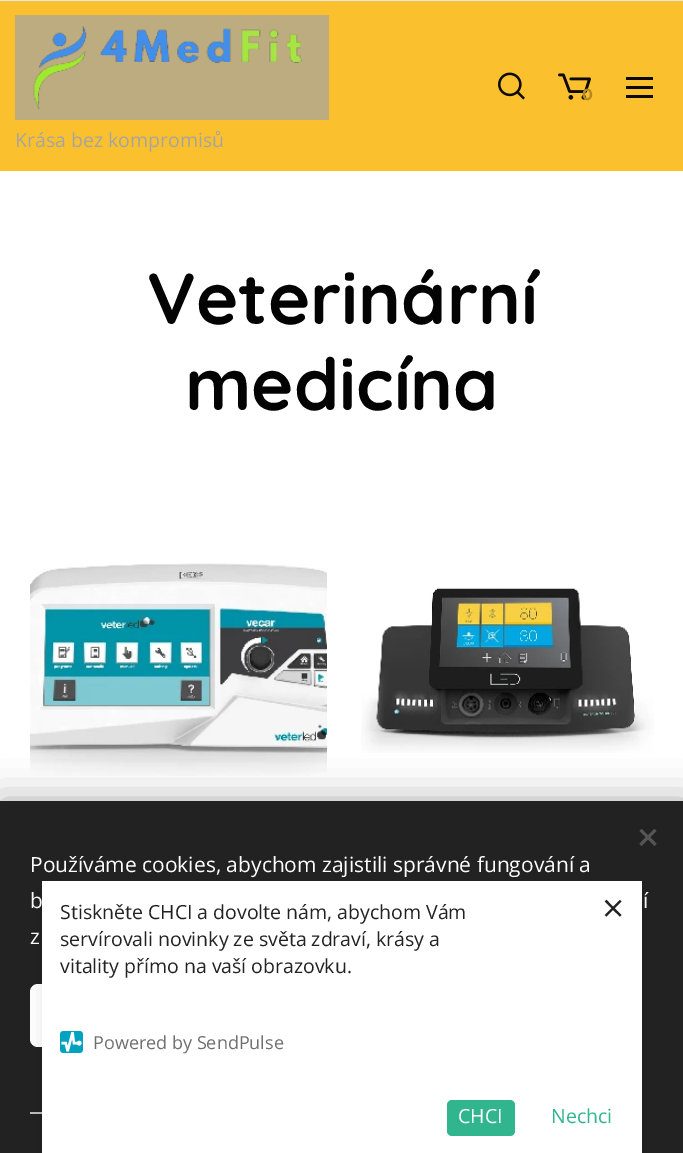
%!PS
<< /PageSize [683 1153] /PageUsesTransparency true >> setpagedevice
/alpha { dup .setfillconstantalpha .setstrokeconstantalpha } def
/roundrect { 5 dict begin { /r /h /w /y /x } { exch def } forall
  x r add y moveto x w add y 2 copy h add r arct x w add y h add x 1 index r arct
  x y h add x y r arct x y 2 copy exch w add exch r arct closepath end } def
/shadow { 12 dict begin { /a /b /q /h /w /y /x } { exch def } forall gsave /was 0 def
  9 -2 -9 { dup b mul 4 div /e exch def 1 sub .425 mul 2.718 exch exp 1 add a .99 .min exch div /now exch def
    1 1 now sub 1 was sub div sub alpha /was now def
    w h .min e 2 mul add 0 gt { x e sub y e sub w e 2 mul add h e 2 mul add
      q e add b .6 mul add w h .min 2 div e add .min 0 .max roundrect fill } if } for grestore end } def
/picture { 5 dict begin { /h /w /y /x /name } { exch def } forall
  gsave x y translate w h scale
  w h 8 [w 0 0 h 0 0] name (r) file false 3 colorimage grestore end } def
0 .pushpdf14devicefilter
0 1153 translate 1 -1 scale
4 setmiterlimit
1 setgray
0 0 683 1153 rectfill
0.984 0.753 0.176 setrgbcolor
0 1 683 170 rectfill
0.91 setgray
0 0 683 1 rectfill
(img1.rgb) 498 72 27 28 picture
(img2.rgb) 558 73 33 27 picture
/Montserrat-Bold [16 0 0 -16 0 0] selectfont
0.702 0.537 0.125 setrgbcolor
582 100 moveto (0) show
0.051 0.039 0.008 setrgbcolor
626 86 27 3 rectfill
626 77 27 3 rectfill
626 95 27 3 rectfill
0.741 0.675 0.502 setrgbcolor
15 15 314 105 rectfill
(img3.rgb) 33 26 269 84 picture
/OpenSans-Regular [19.5 0 0 -19.5 0 0] selectfont
0.643 setgray
15 147 moveto (Krása bez kompromisů) show
/Quicksand-Bold [72 0 0 -72 0 0] selectfont
0.012 setgray
147 324 moveto (Veterinární) show
185 410 moveto (medicína) show
(img4.rgb) 30 563 297 213 picture
(img5.rgb) 361 587 293 166 picture
0 setgray
0 801 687 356 0 19 0.33 shadow
0.133 setgray
0 801 683 352 rectfill
0.333 setgray
newpath 639.5 843.5 moveto 654.5 829 lineto 656.5 831 lineto 641.5 846 lineto closepath fill
newpath 641.5 829 moveto 656.5 843.5 lineto 654.5 846 lineto 639.5 831 lineto closepath fill
/OpenSans-Regular [21 0 0 -21 0 0] selectfont
1 setgray
30 872 moveto (Používáme cookies, abychom zajistili správné fungování a) show
30 908 moveto (b) show
643 908 moveto (í) show
30 944 moveto (z) show
30 984 240 63 8 roundrect fill
0.741 setgray
30 1112 12 2 rectfill
0 setgray
42 887 600 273 0 7.5 0.1 shadow
1 setgray
42 881 600 272 rectfill
/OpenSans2-Regular [19.5 0 0 -19.5 0 0] selectfont
0.133 setgray
60 919 moveto (Stiskněte CHCI a dovolte nám, abychom Vám) show
60 946 moveto (servírovali novinky ze světa zdraví, krásy a) show
60 973 moveto (vitality přímo na vaší obrazovku.) show
(img6.rgb) 60 1031 23 22 picture
/OpenSans2-Regular [18 0 0 -18 0 0] selectfont
0.435 setgray
93 1049 moveto (Powered by SendPulse) show
0.192 0.71 0.557 setrgbcolor
447 1100 68 36 5 roundrect fill
/OpenSans2-Regular [19.5 0 0 -19.5 0 0] selectfont
1 setgray
458 1123 moveto (CHCI) show
0.192 0.71 0.557 setrgbcolor
551 1123 moveto (Nechci) show
/OpenSans2-Regular [39 0 0 -39 0 0] selectfont
0.133 setgray
602 922 moveto (×) show
.poppdf14devicefilter showpage
